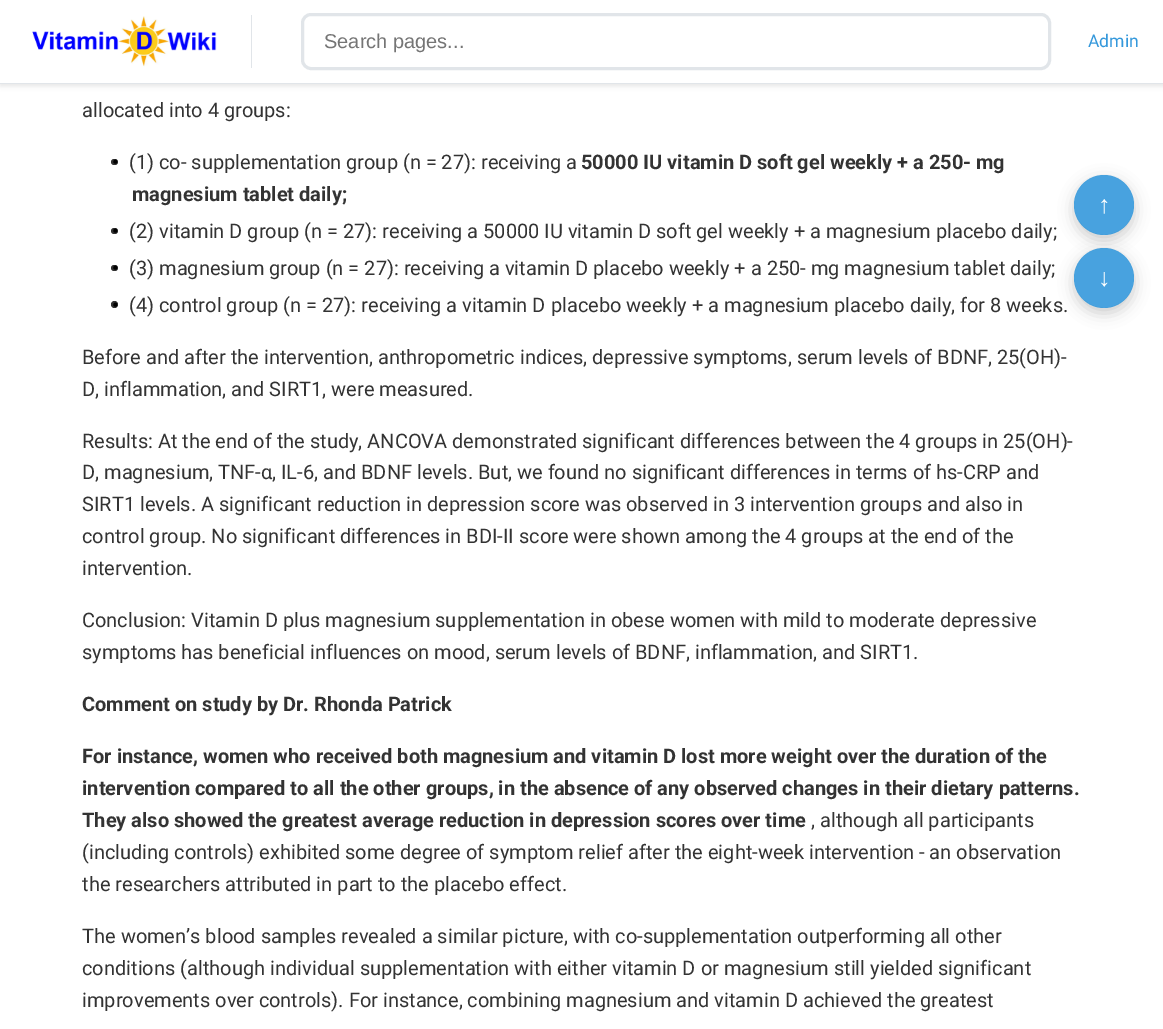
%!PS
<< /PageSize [1163 1029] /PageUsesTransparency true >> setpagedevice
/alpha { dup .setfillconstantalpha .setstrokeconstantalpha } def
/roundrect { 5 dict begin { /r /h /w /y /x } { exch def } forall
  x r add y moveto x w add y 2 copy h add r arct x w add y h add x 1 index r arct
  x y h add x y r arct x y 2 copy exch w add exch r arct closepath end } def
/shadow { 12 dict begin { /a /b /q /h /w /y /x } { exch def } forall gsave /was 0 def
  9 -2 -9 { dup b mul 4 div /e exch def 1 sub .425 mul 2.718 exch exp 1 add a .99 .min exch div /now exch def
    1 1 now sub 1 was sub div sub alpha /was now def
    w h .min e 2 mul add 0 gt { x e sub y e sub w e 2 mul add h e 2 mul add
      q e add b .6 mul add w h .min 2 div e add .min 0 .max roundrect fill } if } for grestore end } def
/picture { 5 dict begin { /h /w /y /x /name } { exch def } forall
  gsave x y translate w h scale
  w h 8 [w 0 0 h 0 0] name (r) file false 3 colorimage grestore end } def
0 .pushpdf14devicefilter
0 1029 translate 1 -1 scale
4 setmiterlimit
1 setgray
0 0 1163 1029 rectfill
0 setgray
0 3 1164 83 0 2.5 0.1 shadow
1 setgray
0 0 1163 83 rectfill
0.882 0.898 0.914 setrgbcolor
0 83 1163 1 rectfill
251 15 1 53 rectfill
(img1.rgb) 32 16 185 51 picture
3 setlinewidth
302.5 14.5 747 54 8.5 roundrect stroke
/LiberationSans-Regular [20 0 0 -20 0 0] selectfont
0.459 setgray
324 48 moveto (Search pages...) show
/Roboto-Regular [17.5 0 0 -17.5 0 0] selectfont
0.204 0.596 0.859 setrgbcolor
1088 47 moveto (Admin) show
/Roboto-Regular [20 0 0 -20 0 0] selectfont
0.2 setgray
82 117 moveto (allocated into 4 groups:) show
111 159 7 6 3 roundrect fill
129 169 moveto (\(1\) co- supplementation group \(n = 27\): receiving a) show
/Roboto-Bold [20 0 0 -20 0 0] selectfont
581 169 moveto (50000 IU vitamin D soft gel weekly + a 250- mg) show
/Roboto-Regular [20 0 0 -20 0 0] selectfont
0 setgray
112 169 moveto (•) show
/Roboto-Bold [20 0 0 -20 0 0] selectfont
0.2 setgray
132 201 moveto (magnesium tablet daily;) show
111 228 7 6 3 roundrect fill
/Roboto-Regular [20 0 0 -20 0 0] selectfont
129 238 moveto (\(2\) vitamin D group \(n = 27\): receiving a 50000 IU vitamin D soft gel weekly + a magnesium placebo daily;) show
0 setgray
112 238 moveto (•) show
0.2 setgray
111 265 7 6 3 roundrect fill
129 275 moveto (\(3\) magnesium group \(n = 27\): receiving a vitamin D placebo weekly + a 250- mg magnesium tablet daily;) show
0 setgray
112 275 moveto (•) show
0.2 setgray
newpath 114.5 304.5 3.5 0 360 arc closepath fill
129 312 moveto (\(4\) control group \(n = 27\): receiving a vitamin D placebo weekly + a magnesium placebo daily, for 8 weeks.) show
0 setgray
112 312 moveto (•) show
0.2 setgray
82 364 moveto (Before and after the intervention, anthropometric indices, depressive symptoms, serum levels of BDNF, 25\(OH\)-) show
82 396 moveto (D, inflammation, and SIRT1, were measured.) show
82 448 moveto (Results: At the end of the study, ANCOVA demonstrated significant differences between the 4 groups in 25\(OH\)-) show
82 479 moveto (D, magnesium, TNF-α, IL-6, and BDNF levels. But, we found no significant differences in terms of hs-CRP and) show
82 511 moveto (SIRT1 levels. A significant reduction in depression score was observed in 3 intervention groups and also in) show
82 543 moveto (control group. No significant differences in BDI-II score were shown among the 4 groups at the end of the) show
82 575 moveto (intervention.) show
82 627 moveto (Conclusion: Vitamin D plus magnesium supplementation in obese women with mild to moderate depressive) show
82 659 moveto (symptoms has beneficial influences on mood, serum levels of BDNF, inflammation, and SIRT1.) show
/Roboto-Bold [20 0 0 -20 0 0] selectfont
82 711 moveto (Comment on study by Dr. Rhonda Patrick) show
82 763 moveto (For instance, women who received both magnesium and vitamin D lost more weight over the duration of the) show
82 795 moveto (intervention compared to all the other groups, in the absence of any observed changes in their dietary patterns.) show
82 827 moveto (They also showed the greatest average reduction in depression scores over time) show
/Roboto-Regular [20 0 0 -20 0 0] selectfont
811 827 moveto (, although all participants) show
82 859 moveto (\(including controls\) exhibited some degree of symptom relief after the eight-week intervention - an observation) show
82 891 moveto (the researchers attributed in part to the placebo effect.) show
82 943 moveto (The women’s blood samples revealed a similar picture, with co-supplementation outperforming all other) show
82 975 moveto (conditions \(although individual supplementation with either vitamin D or magnesium still yielded significant) show
82 1007 moveto (improvements over controls\). For instance, combining magnesium and vitamin D achieved the greatest) show
gsave
newpath 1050 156 moveto 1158 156 lineto 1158 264 lineto 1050 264 lineto closepath 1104 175 moveto 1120.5 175 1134 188.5 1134 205 curveto 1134 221.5 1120.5 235 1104 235 curveto 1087.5 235 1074 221.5 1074 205 curveto 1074 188.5 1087.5 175 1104 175 curveto closepath eoclip newpath
0 setgray
1074 180 60 60 30 7.5 0.2 shadow
grestore
0.9 alpha
0.204 0.596 0.859 setrgbcolor
newpath 1104 205 30 0 360 arc closepath fill
/LiberationSans-Regular [25 0 0 -25 0 0] selectfont
1 alpha
1 setgray
1098 213 moveto (↑) show
gsave
newpath 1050 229 moveto 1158 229 lineto 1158 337 lineto 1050 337 lineto closepath 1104 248 moveto 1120.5 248 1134 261.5 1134 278 curveto 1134 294.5 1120.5 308 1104 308 curveto 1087.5 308 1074 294.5 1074 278 curveto 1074 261.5 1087.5 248 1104 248 curveto closepath eoclip newpath
0 setgray
1074 253 60 60 30 7.5 0.2 shadow
grestore
0.9 alpha
0.204 0.596 0.859 setrgbcolor
newpath 1104 278 30 0 360 arc closepath fill
1 alpha
1 setgray
1098 286 moveto (↓) show
.poppdf14devicefilter showpage
